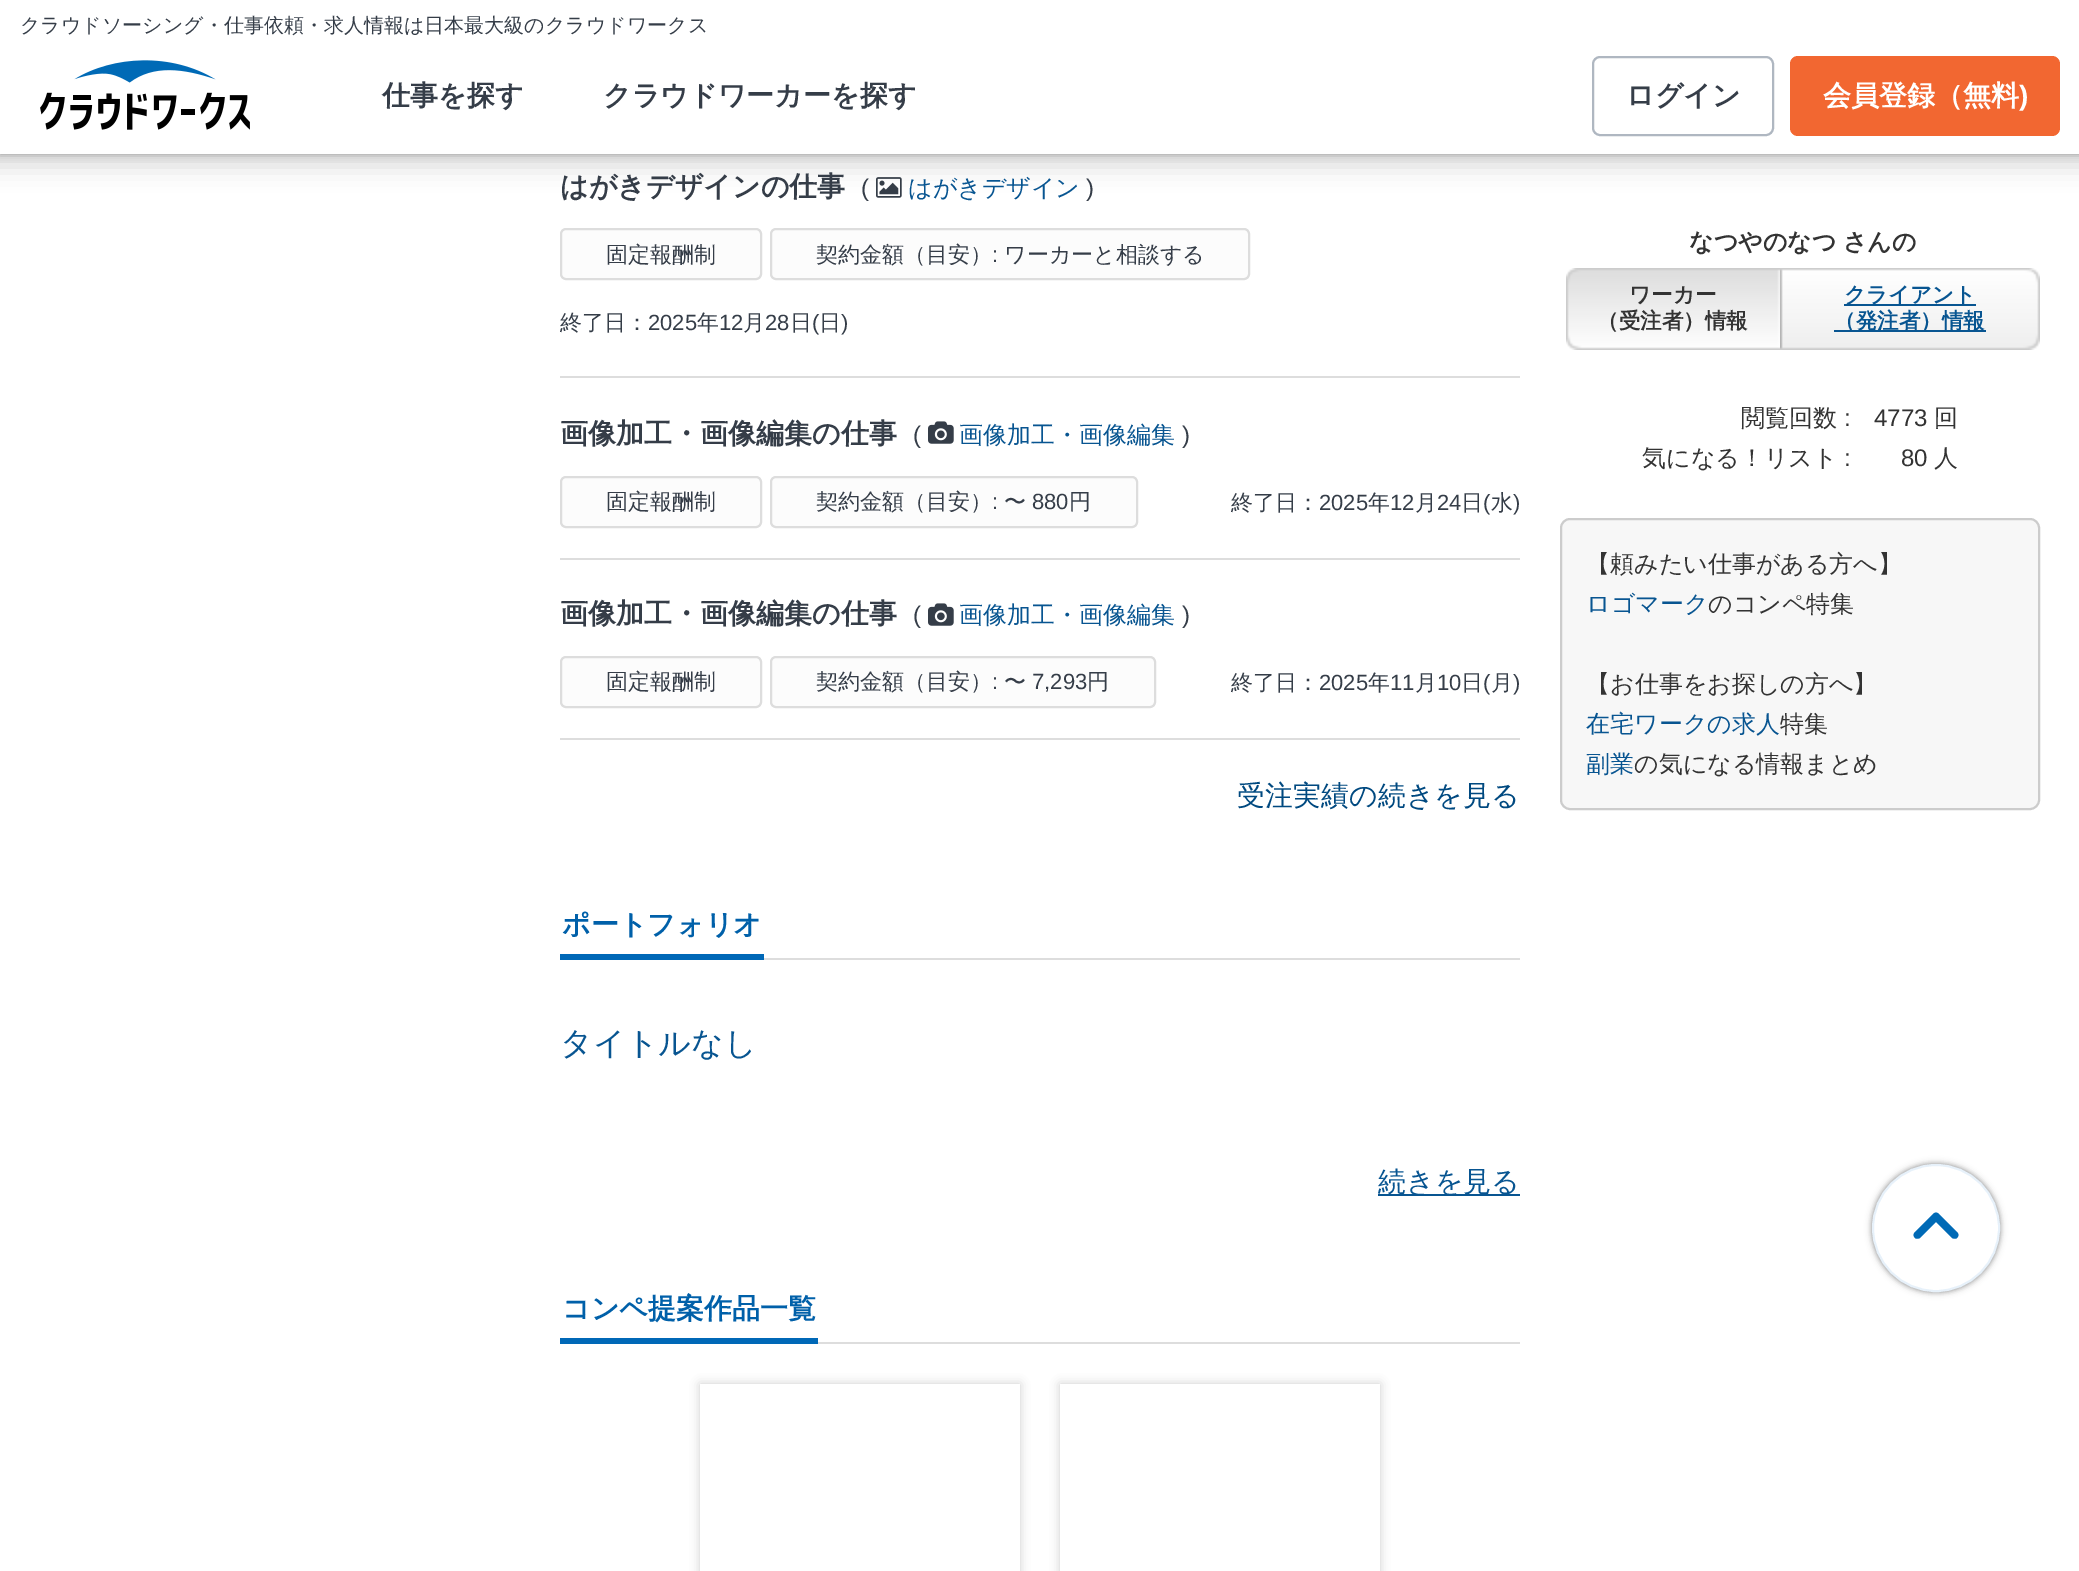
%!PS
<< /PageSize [2079 1571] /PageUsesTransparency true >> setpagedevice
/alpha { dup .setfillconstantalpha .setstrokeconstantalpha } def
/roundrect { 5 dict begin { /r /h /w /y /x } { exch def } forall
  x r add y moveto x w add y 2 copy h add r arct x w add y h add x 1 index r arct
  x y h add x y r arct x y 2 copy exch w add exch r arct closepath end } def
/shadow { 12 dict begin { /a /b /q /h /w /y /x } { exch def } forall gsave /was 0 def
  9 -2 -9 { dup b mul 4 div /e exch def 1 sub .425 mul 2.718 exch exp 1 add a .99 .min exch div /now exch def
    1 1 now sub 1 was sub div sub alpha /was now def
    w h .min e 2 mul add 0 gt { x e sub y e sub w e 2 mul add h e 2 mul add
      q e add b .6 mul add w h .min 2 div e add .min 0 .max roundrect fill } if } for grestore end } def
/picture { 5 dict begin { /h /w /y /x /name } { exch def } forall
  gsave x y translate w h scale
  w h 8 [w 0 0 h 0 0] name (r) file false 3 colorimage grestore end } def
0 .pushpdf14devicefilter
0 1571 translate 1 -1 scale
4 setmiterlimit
1 setgray
0 0 2079 1571 rectfill
(img2.rgb) 876 177 26 21 picture
0 setgray
-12 -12 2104 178 0 12 0.15 shadow
0 0 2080 154 0 4 0.3 shadow
1 setgray
0 0 2079 154 rectfill
/WenQuanYiZenHei-Medium [20 0 0 -20 0 0] selectfont
0.208 0.239 0.282 setrgbcolor
20 32 moveto (クラウドソーシング・仕事依頼・求人情報は日本最大級のクラウドワークス) show
(img1.rgb) 40 60 210 70 picture
/WenQuanYiZenHei-Bold [28 0 0 -28 0 0] selectfont
382 105 moveto (仕事を探す) show
603 105 moveto (クラウドワーカーを探す) show
0.686 0.718 0.757 setrgbcolor
2 setlinewidth
1593 57 180 78 7 roundrect stroke
0.208 0.239 0.282 setrgbcolor
1626 105 moveto (ログイン) show
0.949 0.404 0.192 setrgbcolor
1790 56 270 80 8 roundrect fill
1 setgray
1823 105 moveto (会員登録（無料) show
/LiberationSans-Bold [28 0 0 -28 0 0] selectfont
2019 105 moveto (\)) show
0.867 setgray
560 376 960 2 rectfill
/WenQuanYiZenHei-Bold [28 0 0 -28 0 0] selectfont
0.208 0.239 0.282 setrgbcolor
560 196 moveto (はがきデザインの仕事) show
/LiberationSans-Regular [24 0 0 -24 0 0] selectfont
861 196 moveto (\() show
/WenQuanYiZenHei-Medium [24 0 0 -24 0 0] selectfont
0.031 0.333 0.569 setrgbcolor
908 196 moveto (はがきデザイン) show
/LiberationSans-Regular [24 0 0 -24 0 0] selectfont
0.208 0.239 0.282 setrgbcolor
1086 196 moveto (\)) show
0.988 setgray
561 229 200 50 5 roundrect gsave fill grestore
0.867 setgray
stroke
/WenQuanYiZenHei-Medium [22 0 0 -22 0 0] selectfont
0.208 0.239 0.282 setrgbcolor
606 262 moveto (固定報酬制) show
0.988 setgray
771 229 478 50 5 roundrect gsave fill grestore
0.867 setgray
stroke
0.208 0.239 0.282 setrgbcolor
816 262 moveto (契約金額（目安）) show
/LiberationSans-Regular [22 0 0 -22 0 0] selectfont
992 262 moveto (:) show
/WenQuanYiZenHei-Medium [22 0 0 -22 0 0] selectfont
1004 262 moveto (ワーカーと相談する) show
560 330 moveto (終了日：) show
/LiberationSans-Regular [22 0 0 -22 0 0] selectfont
648 330 moveto (2025) show
/WenQuanYiZenHei-Medium [22 0 0 -22 0 0] selectfont
697 330 moveto (年) show
/LiberationSans-Regular [22 0 0 -22 0 0] selectfont
719 330 moveto (12) show
/WenQuanYiZenHei-Medium [22 0 0 -22 0 0] selectfont
743 330 moveto (月) show
/LiberationSans-Regular [22 0 0 -22 0 0] selectfont
765 330 moveto (28) show
/WenQuanYiZenHei-Medium [22 0 0 -22 0 0] selectfont
790 330 moveto (日) show
/LiberationSans-Regular [22 0 0 -22 0 0] selectfont
812 330 moveto (\() show
/WenQuanYiZenHei-Medium [22 0 0 -22 0 0] selectfont
819 330 moveto (日) show
/LiberationSans-Regular [22 0 0 -22 0 0] selectfont
841 330 moveto (\)) show
0.867 setgray
560 558 960 2 rectfill
/WenQuanYiZenHei-Bold [28 0 0 -28 0 0] selectfont
0.208 0.239 0.282 setrgbcolor
560 443 moveto (画像加工・画像編集の仕事) show
/LiberationSans-Regular [24 0 0 -24 0 0] selectfont
913 443 moveto (\() show
(img3.rgb) 928 421 26 23 picture
/WenQuanYiZenHei-Medium [24 0 0 -24 0 0] selectfont
0.031 0.333 0.569 setrgbcolor
959 443 moveto (画像加工・画像編集) show
/LiberationSans-Regular [24 0 0 -24 0 0] selectfont
0.208 0.239 0.282 setrgbcolor
1182 443 moveto (\)) show
0.988 setgray
561 477 200 50 5 roundrect gsave fill grestore
0.867 setgray
stroke
/WenQuanYiZenHei-Medium [22 0 0 -22 0 0] selectfont
0.208 0.239 0.282 setrgbcolor
606 509 moveto (固定報酬制) show
0.988 setgray
771 477 366 50 5 roundrect gsave fill grestore
0.867 setgray
stroke
0.208 0.239 0.282 setrgbcolor
816 509 moveto (契約金額（目安）) show
/LiberationSans-Regular [22 0 0 -22 0 0] selectfont
992 509 moveto (:) show
/WenQuanYiZenHei-Medium [22 0 0 -22 0 0] selectfont
1004 509 moveto (〜) show
/LiberationSans-Regular [22 0 0 -22 0 0] selectfont
1032 509 moveto (880) show
/WenQuanYiZenHei-Medium [22 0 0 -22 0 0] selectfont
1069 509 moveto (円) show
1231 510 moveto (終了日：) show
/LiberationSans-Regular [22 0 0 -22 0 0] selectfont
1319 510 moveto (2025) show
/WenQuanYiZenHei-Medium [22 0 0 -22 0 0] selectfont
1368 510 moveto (年) show
/LiberationSans-Regular [22 0 0 -22 0 0] selectfont
1390 510 moveto (12) show
/WenQuanYiZenHei-Medium [22 0 0 -22 0 0] selectfont
1415 510 moveto (月) show
/LiberationSans-Regular [22 0 0 -22 0 0] selectfont
1437 510 moveto (24) show
/WenQuanYiZenHei-Medium [22 0 0 -22 0 0] selectfont
1461 510 moveto (日) show
/LiberationSans-Regular [22 0 0 -22 0 0] selectfont
1483 510 moveto (\() show
/WenQuanYiZenHei-Medium [22 0 0 -22 0 0] selectfont
1491 510 moveto (水) show
/LiberationSans-Regular [22 0 0 -22 0 0] selectfont
1513 510 moveto (\)) show
0.867 setgray
560 738 960 2 rectfill
/WenQuanYiZenHei-Bold [28 0 0 -28 0 0] selectfont
0.208 0.239 0.282 setrgbcolor
560 623 moveto (画像加工・画像編集の仕事) show
/LiberationSans-Regular [24 0 0 -24 0 0] selectfont
913 623 moveto (\() show
(img3.rgb) 928 603 26 23 picture
/WenQuanYiZenHei-Medium [24 0 0 -24 0 0] selectfont
0.031 0.333 0.569 setrgbcolor
959 623 moveto (画像加工・画像編集) show
/LiberationSans-Regular [24 0 0 -24 0 0] selectfont
0.208 0.239 0.282 setrgbcolor
1182 623 moveto (\)) show
0.988 setgray
561 657 200 50 5 roundrect gsave fill grestore
0.867 setgray
stroke
/WenQuanYiZenHei-Medium [22 0 0 -22 0 0] selectfont
0.208 0.239 0.282 setrgbcolor
606 689 moveto (固定報酬制) show
0.988 setgray
771 657 384 50 5 roundrect gsave fill grestore
0.867 setgray
stroke
0.208 0.239 0.282 setrgbcolor
816 689 moveto (契約金額（目安）) show
/LiberationSans-Regular [22 0 0 -22 0 0] selectfont
992 689 moveto (:) show
/WenQuanYiZenHei-Medium [22 0 0 -22 0 0] selectfont
1004 689 moveto (〜) show
/LiberationSans-Regular [22 0 0 -22 0 0] selectfont
1032 689 moveto (7,293) show
/WenQuanYiZenHei-Medium [22 0 0 -22 0 0] selectfont
1087 689 moveto (円) show
1231 690 moveto (終了日：) show
/LiberationSans-Regular [22 0 0 -22 0 0] selectfont
1319 690 moveto (2025) show
/WenQuanYiZenHei-Medium [22 0 0 -22 0 0] selectfont
1368 690 moveto (年) show
/LiberationSans-Regular [22 0 0 -22 0 0] selectfont
1390 690 moveto (11) show
/WenQuanYiZenHei-Medium [22 0 0 -22 0 0] selectfont
1415 690 moveto (月) show
/LiberationSans-Regular [22 0 0 -22 0 0] selectfont
1437 690 moveto (10) show
/WenQuanYiZenHei-Medium [22 0 0 -22 0 0] selectfont
1461 690 moveto (日) show
/LiberationSans-Regular [22 0 0 -22 0 0] selectfont
1483 690 moveto (\() show
/WenQuanYiZenHei-Medium [22 0 0 -22 0 0] selectfont
1491 690 moveto (月) show
/LiberationSans-Regular [22 0 0 -22 0 0] selectfont
1513 690 moveto (\)) show
/WenQuanYiZenHei-Medium [28 0 0 -28 0 0] selectfont
0 0.286 0.502 setrgbcolor
1237 805 moveto (受注実績の続きを見る) show
0.867 setgray
764 958 756 2 rectfill
0 0.408 0.718 setrgbcolor
560 954 204 6 rectfill
/WenQuanYiZenHei-Bold [28 0 0 -28 0 0] selectfont
0 0.376 0.663 setrgbcolor
562 934 moveto (ポートフォリオ) show
/WenQuanYiZenHei-Medium [32 0 0 -32 0 0] selectfont
0.031 0.333 0.569 setrgbcolor
560 1054 moveto (タイトルなし) show
1378 1194 142 2 rectfill
/WenQuanYiZenHei-Medium [28 0 0 -28 0 0] selectfont
1378 1191 moveto (続きを見る) show
0.867 setgray
818 1342 702 2 rectfill
0 0.408 0.718 setrgbcolor
560 1338 258 6 rectfill
/WenQuanYiZenHei-Bold [28 0 0 -28 0 0] selectfont
0 0.376 0.663 setrgbcolor
562 1318 moveto (コンペ提案作品一覧) show
gsave
newpath 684 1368 moveto 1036 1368 lineto 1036 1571 lineto 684 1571 lineto closepath 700 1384 moveto 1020 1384 lineto 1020 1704 lineto 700 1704 lineto closepath eoclip newpath
0.8 setgray
700 1384 320 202 0 5 1 shadow
grestore
gsave
newpath 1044 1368 moveto 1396 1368 lineto 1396 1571 lineto 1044 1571 lineto closepath 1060 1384 moveto 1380 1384 lineto 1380 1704 lineto 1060 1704 lineto closepath eoclip newpath
0.8 setgray
1060 1384 320 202 0 5 1 shadow
grestore
/WenQuanYiZenHei-Bold [24 0 0 -24 0 0] selectfont
0.2 setgray
1689 250 moveto -1 0 32 (なつやのなつ さんの) widthshow
(img4.rgb) 1566 268 214 82 picture
/WenQuanYiZenHei-Bold [21.5 0 0 -21.5 0 0] selectfont
1629 302 moveto (ワーカー) show
1597 328 moveto (（受注者）情報) show
(img5.rgb) 1780 268 260 82 picture
0.031 0.333 0.569 setrgbcolor
1844 304 132 2 rectfill
1844 302 moveto (クライアント) show
1834 330 152 2 rectfill
1834 328 moveto (（発注者）情報) show
/WenQuanYiZenHei-Medium [24 0 0 -24 0 0] selectfont
0.2 setgray
1741 426 moveto (閲覧回数) show
/LiberationSans-Regular [24 0 0 -24 0 0] selectfont
1844 426 moveto (:) show
1874 426 moveto (4773) show
/WenQuanYiZenHei-Medium [24 0 0 -24 0 0] selectfont
1934 426 moveto (回) show
1642 466 moveto (気になる！リスト) show
/LiberationSans-Regular [24 0 0 -24 0 0] selectfont
1844 466 moveto (:) show
1901 466 moveto (80) show
/WenQuanYiZenHei-Medium [24 0 0 -24 0 0] selectfont
1934 466 moveto (人) show
0.969 setgray
1561 519 478 290 9 roundrect gsave fill grestore
0.8 setgray
stroke
0.2 setgray
1586 572 moveto (【頼みたい仕事がある方へ】) show
0.031 0.333 0.569 setrgbcolor
1586 612 moveto (ロゴマーク) show
0.2 setgray
1708 612 moveto (のコンペ特集) show
1586 692 moveto (【お仕事をお探しの方へ】) show
0.031 0.333 0.569 setrgbcolor
1586 732 moveto (在宅ワークの求人) show
0.2 setgray
1780 732 moveto (特集) show
0.031 0.333 0.569 setrgbcolor
1586 772 moveto (副業) show
0.2 setgray
1634 772 moveto (の気になる情報まとめ) show
gsave
newpath 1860 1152 moveto 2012 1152 lineto 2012 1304 lineto 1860 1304 lineto closepath 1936 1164 moveto 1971.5 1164 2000 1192.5 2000 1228 curveto 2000 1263.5 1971.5 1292 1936 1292 curveto 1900.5 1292 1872 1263.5 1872 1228 curveto 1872 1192.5 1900.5 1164 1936 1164 curveto closepath eoclip newpath
0 setgray
1870 1162 132 132 66 3 0.15 shadow
grestore
gsave
newpath 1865 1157 moveto 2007 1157 lineto 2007 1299 lineto 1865 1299 lineto closepath 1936 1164 moveto 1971.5 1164 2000 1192.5 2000 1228 curveto 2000 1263.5 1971.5 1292 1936 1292 curveto 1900.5 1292 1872 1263.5 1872 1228 curveto 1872 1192.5 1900.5 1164 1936 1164 curveto closepath eoclip newpath
0 setgray
1872 1164 128 128 64 2 0.3 shadow
grestore
0 0.416 0.714 setrgbcolor
newpath 1933 1214 moveto 1935 1212 1937 1212 1939 1214 curveto 1957 1232 lineto 1959 1234 1959 1236 1957 1238 curveto 1956 1239 1954 1239 1952 1238 curveto 1936 1222 lineto 1920 1238 lineto 1918 1239 1916 1239 1915 1238 curveto 1913 1236 1913 1234 1915 1232 curveto closepath fill
0.906 0.945 0.98 setrgbcolor
newpath 1936 1228 63 0 360 arc closepath stroke
.poppdf14devicefilter showpage
